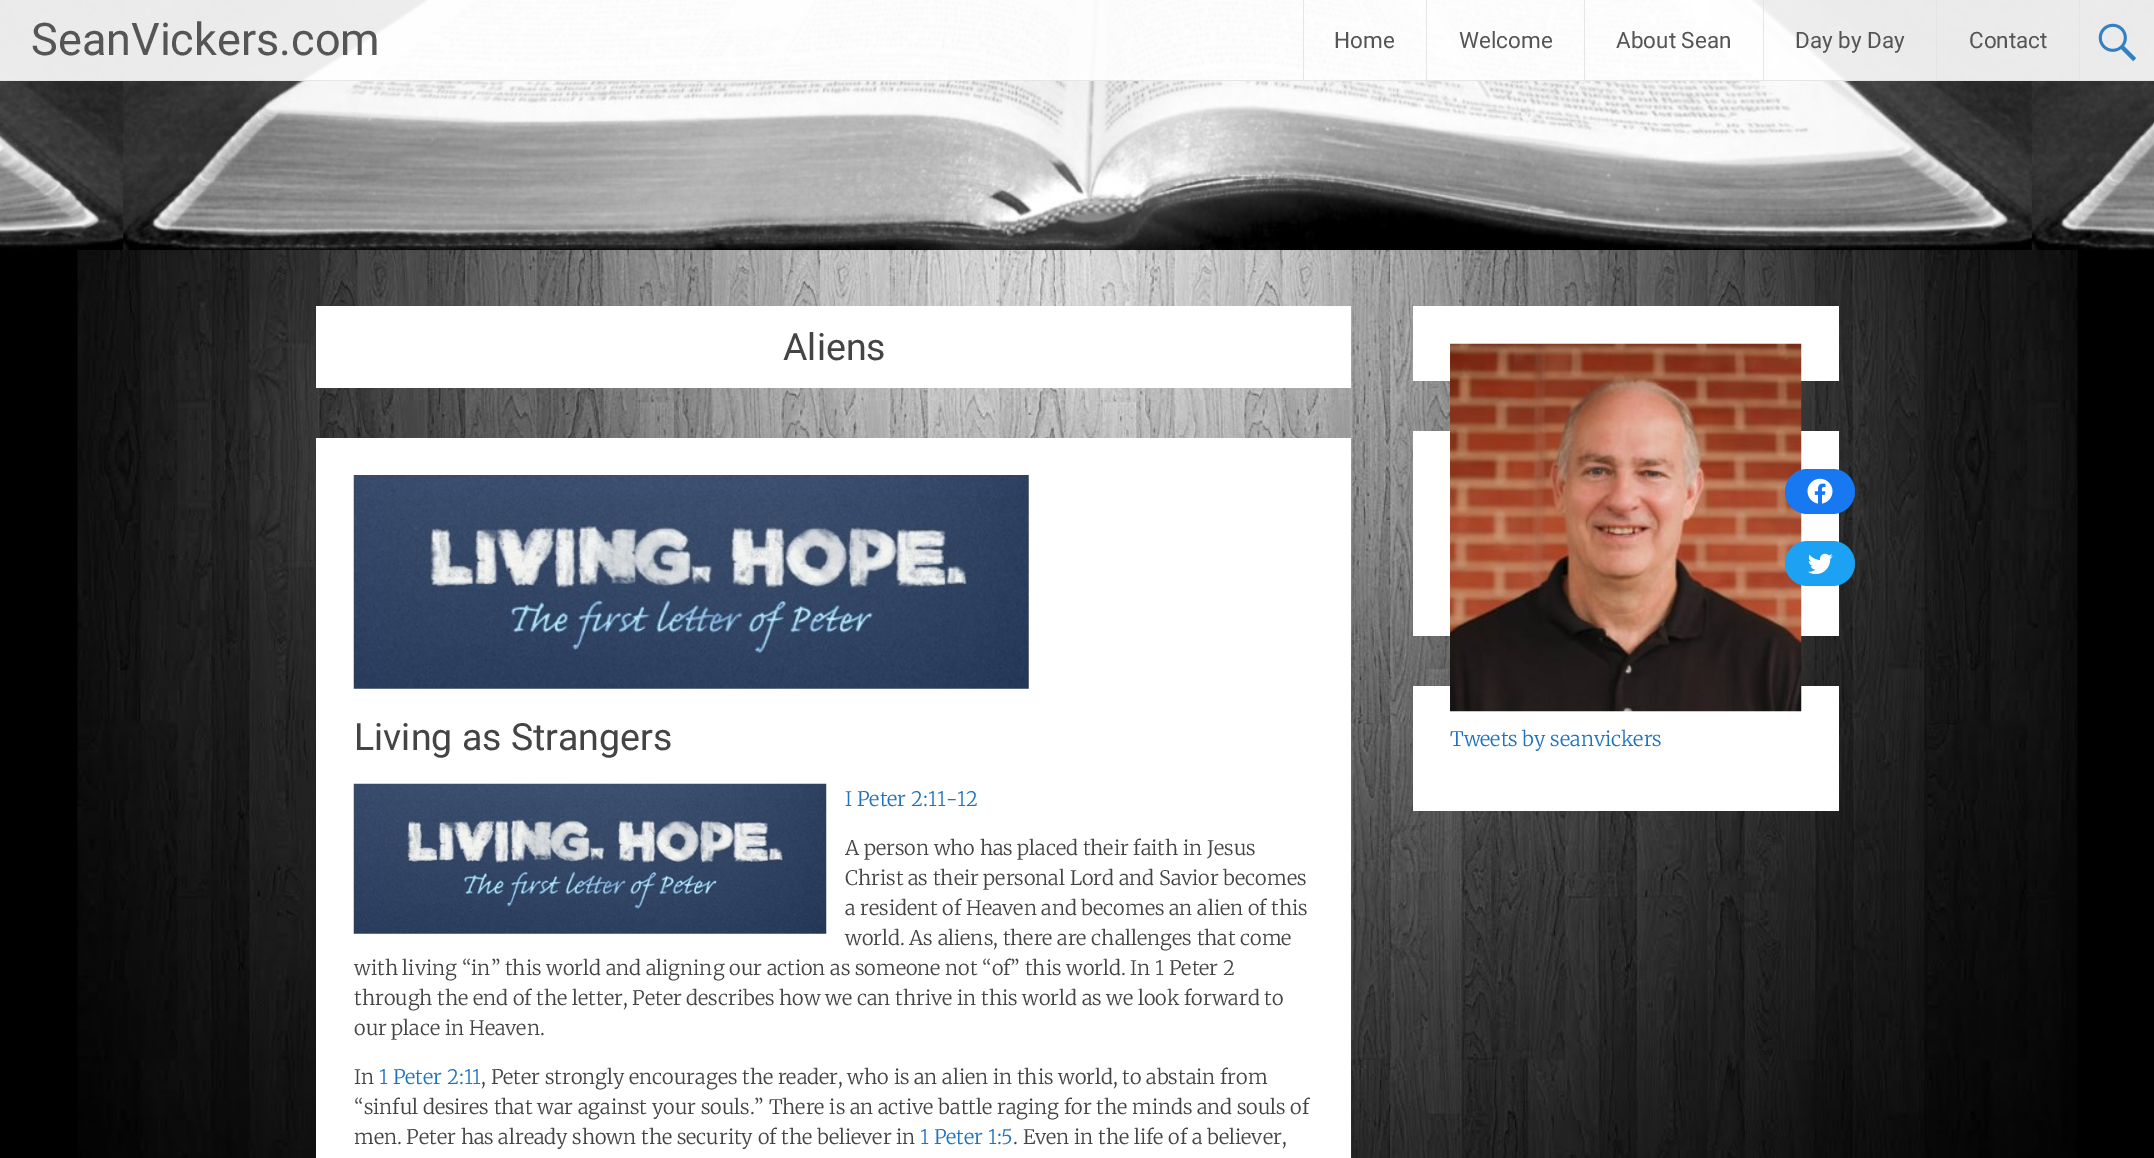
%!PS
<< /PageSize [2154 1158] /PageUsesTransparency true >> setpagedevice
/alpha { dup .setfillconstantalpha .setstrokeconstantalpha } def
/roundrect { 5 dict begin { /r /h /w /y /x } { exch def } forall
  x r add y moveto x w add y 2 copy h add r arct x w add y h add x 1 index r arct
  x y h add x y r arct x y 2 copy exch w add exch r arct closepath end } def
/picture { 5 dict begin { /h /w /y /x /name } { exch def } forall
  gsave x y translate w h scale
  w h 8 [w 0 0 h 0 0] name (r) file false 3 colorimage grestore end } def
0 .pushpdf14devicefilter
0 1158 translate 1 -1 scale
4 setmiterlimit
1 setgray
0 0 2154 1158 rectfill
(img1.rgb) 0 0 2154 250 picture
0.9 alpha
0 0 2154 81 rectfill
0.882 0.894 0.902 setrgbcolor
0 80 2154 1 rectfill
/Roboto-Regular [45 0 0 -45 0 0] selectfont
1 alpha
0.333 setgray
31 55 moveto (SeanVickers.com) show
0.9 alpha
0.882 0.894 0.902 setrgbcolor
1303 0 1 80 rectfill
/Roboto-Regular [22.5 0 0 -22.5 0 0] selectfont
1 alpha
0.333 setgray
1334 48 moveto (Home) show
0.9 alpha
0.882 0.894 0.902 setrgbcolor
1426 0 1 80 rectfill
1 alpha
0.333 setgray
1459 48 moveto (Welcome) show
0.9 alpha
0.882 0.894 0.902 setrgbcolor
1584 0 1 80 rectfill
1 alpha
0.333 setgray
1616 48 moveto (About Sean) show
0.9 alpha
0.882 0.894 0.902 setrgbcolor
1763 0 1 80 rectfill
1 alpha
0.333 setgray
1795 48 moveto (Day by Day) show
0.886 0.898 0.902 setrgbcolor
1936 0 1 80 rectfill
0.333 setgray
1969 48 moveto (Contact) show
0.886 0.898 0.902 setrgbcolor
2079 0 1 80 rectfill
(img2.rgb) 2098 23 39 39 picture
0 setgray
0 250 2154 908 rectfill
(img3.rgb) 77 250 2001 908 picture
1 setgray
316 306 1035 82 rectfill
/Roboto-Regular [37.5 0 0 -37.5 0 0] selectfont
0.267 setgray
783 360 moveto (Aliens) show
1 setgray
316 438 1035 720 rectfill
(img4.rgb) 353 475 676 214 picture
0.267 setgray
354 750 moveto (Living as Strangers) show
(img5.rgb) 353 783 474 151 picture
/Merriweather-Light [20 0 0 -20 0 0] selectfont
0.118 0.451 0.745 setrgbcolor
845 806 moveto (I Peter 2:11-12) show
0.267 setgray
845 855 moveto (A person who has placed their faith in Jesus) show
845 885 moveto (Christ as their personal Lord and Savior becomes) show
845 915 moveto (a resident of Heaven and becomes an alien of this) show
845 945 moveto (world. As aliens, there are challenges that come) show
354 975 moveto (with living “in” this world and aligning our action as someone not “of” this world. In 1 Peter 2) show
354 1005 moveto (through the end of the letter, Peter describes how we can thrive in this world as we look forward to) show
354 1035 moveto (our place in Heaven.) show
354 1084 moveto (In) show
0.118 0.451 0.745 setrgbcolor
379 1084 moveto (1 Peter 2:11) show
0.267 setgray
481 1084 moveto (, Peter strongly encourages the reader, who is an alien in this world, to abstain from) show
354 1114 moveto (“sinful desires that war against your souls.” There is an active battle raging for the minds and souls of) show
354 1144 moveto (men. Peter has already shown the security of the believer in) show
0.118 0.451 0.745 setrgbcolor
920 1144 moveto (1 Peter 1:5) show
0.267 setgray
1013 1144 moveto (. Even in the life of a believer,) show
1 setgray
1413 306 426 75 rectfill
1413 431 426 205 rectfill
1413 686 426 125 rectfill
(img6.rgb) 1450 343 352 369 picture
0.09 0.471 0.949 setrgbcolor
1785 469 70 45 22.5 roundrect fill
(img7.rgb) 1807 478 26 26 picture
0.114 0.631 0.949 setrgbcolor
1785 541 70 45 22.5 roundrect fill
(img8.rgb) 1808 553 25 22 picture
0.118 0.451 0.745 setrgbcolor
1450 746 moveto (Tweets by seanvickers) show
.poppdf14devicefilter showpage
